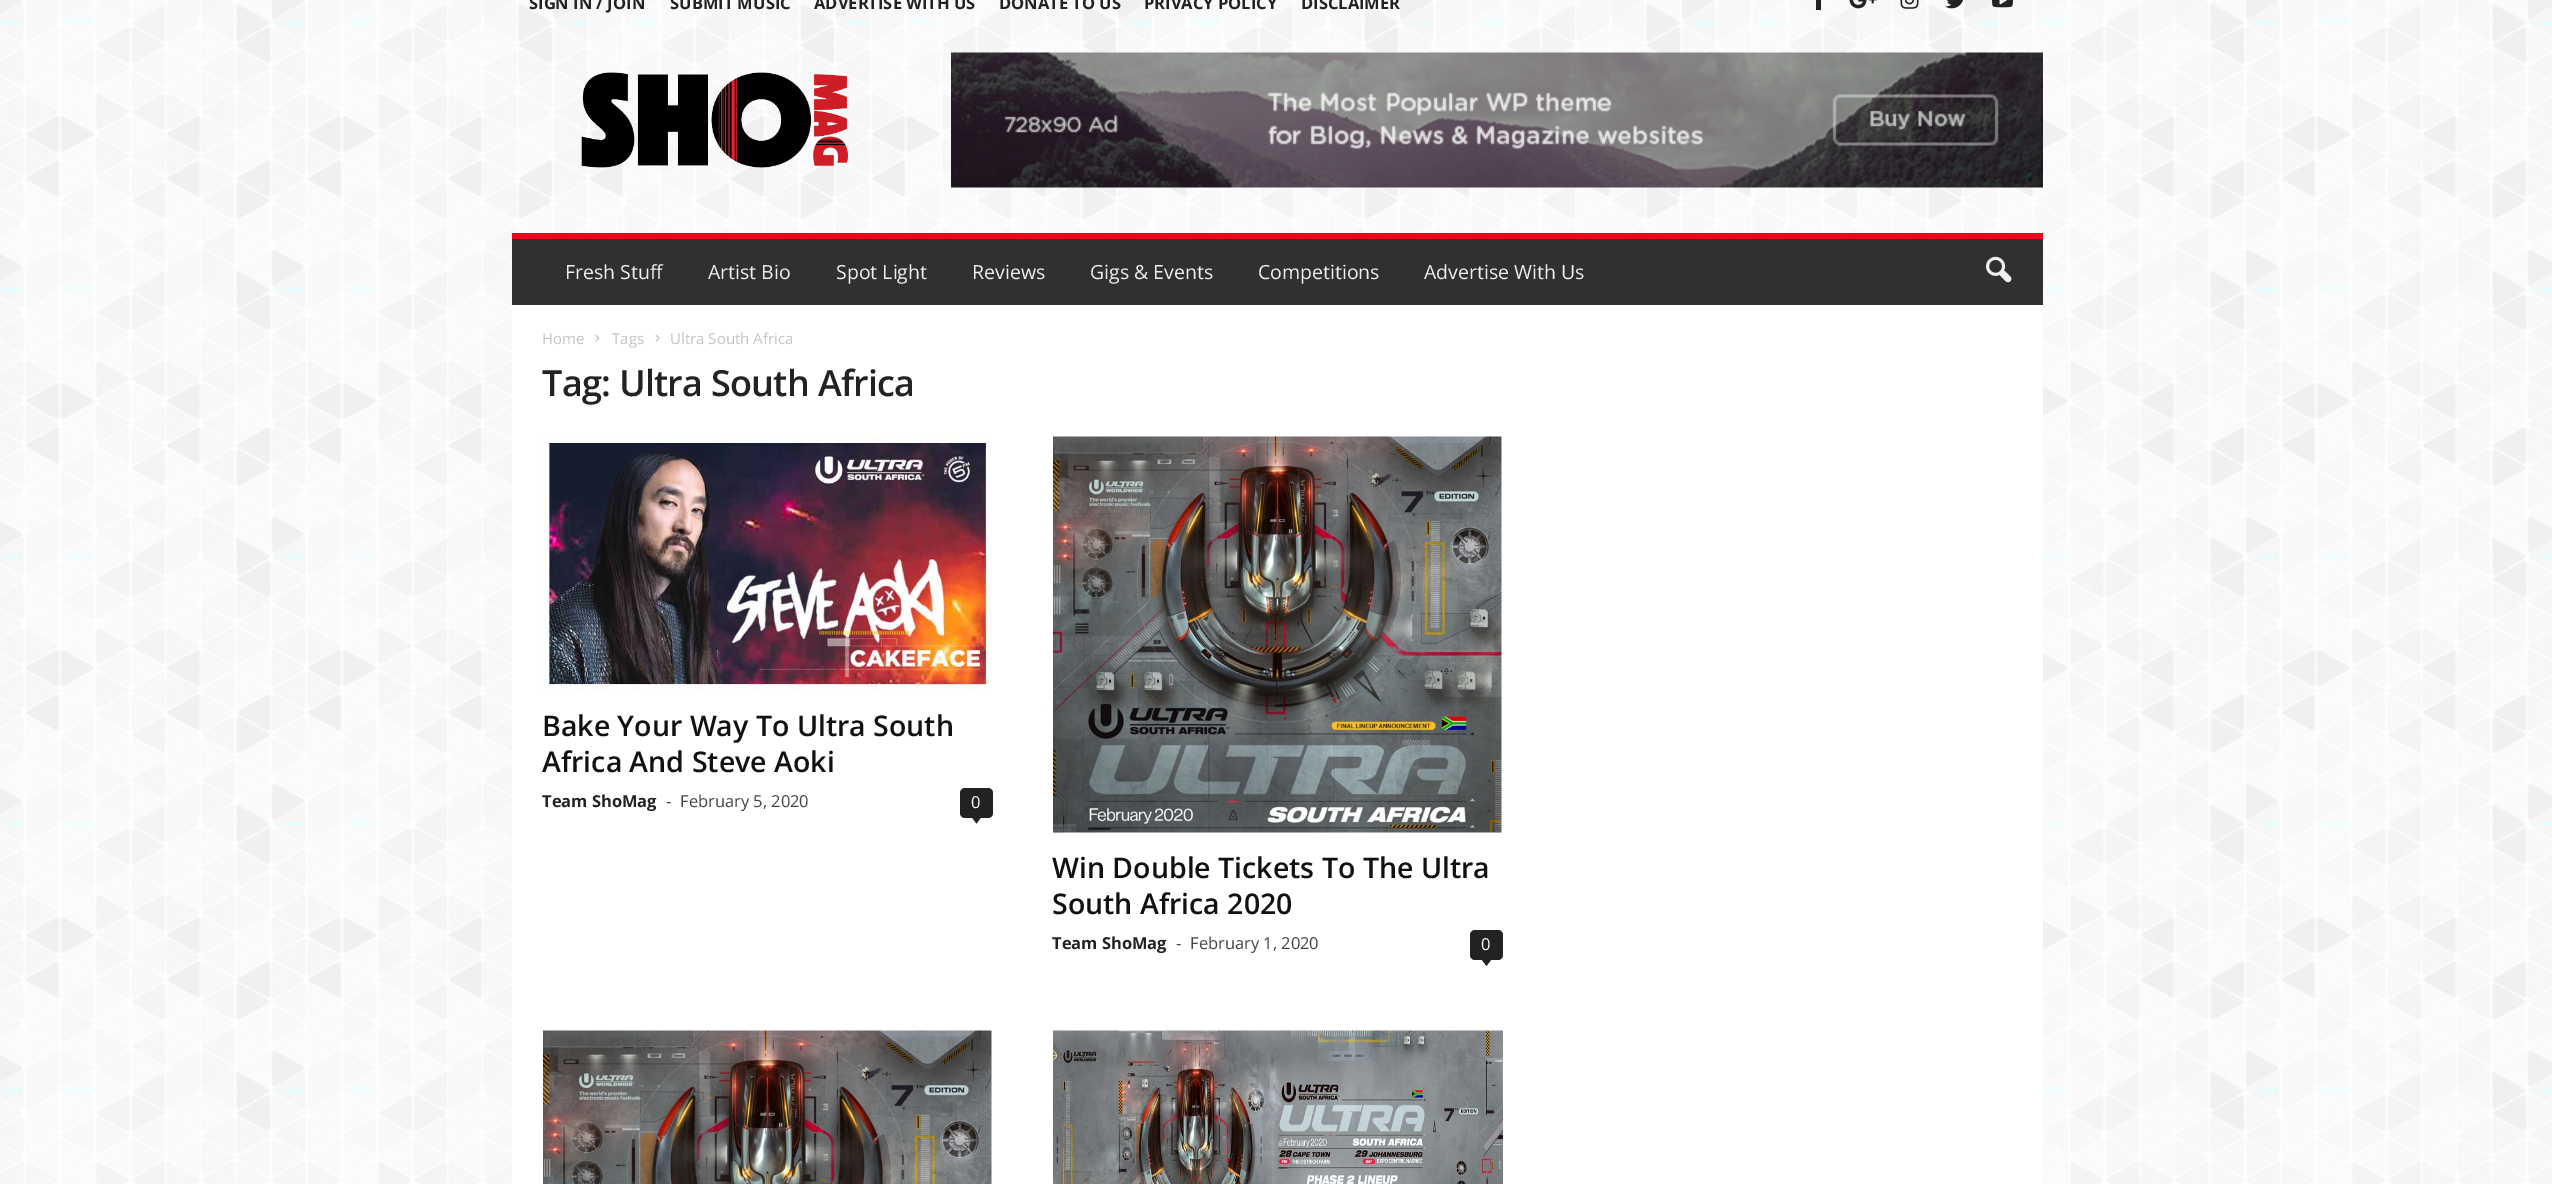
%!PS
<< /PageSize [2552 1184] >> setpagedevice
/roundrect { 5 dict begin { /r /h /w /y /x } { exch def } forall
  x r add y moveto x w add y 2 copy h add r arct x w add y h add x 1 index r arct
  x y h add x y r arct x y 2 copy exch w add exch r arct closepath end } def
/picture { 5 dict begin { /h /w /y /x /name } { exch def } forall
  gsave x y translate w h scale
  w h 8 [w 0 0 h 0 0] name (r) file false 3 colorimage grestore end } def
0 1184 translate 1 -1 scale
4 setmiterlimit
1 setgray
0 0 2552 1184 rectfill
(img1.rgb) 0 0 2552 1184 picture
/OpenSans-Bold [16.5 0 0 -16.5 0 0] selectfont
0.133 setgray
529 9 moveto (SIGN IN / JOIN) show
670 9 moveto (SUBMIT MUSIC) show
814 9 moveto (ADVERTISE WITH US) show
999 9 moveto (DONATE TO US) show
1144 9 moveto (PRIVACY POLICY) show
1301 9 moveto (DISCLAIMER) show
1816 0 5 10 rectfill
(img2.rgb) 1849 0 28 9 picture
(img3.rgb) 1900 0 19 9 picture
(img4.rgb) 1945 0 18 9 picture
(img5.rgb) 1992 0 21 8 picture
(img6.rgb) 581 72 268 96 picture
(img7.rgb) 951 52 1092 136 picture
0.188 setgray
512 239 1531 66 rectfill
0.925 0.024 0.114 setrgbcolor
512 233 1531 6 rectfill
/OpenSans-Regular [19.5 0 0 -19.5 0 0] selectfont
0.937 setgray
565 279 moveto (Fresh Stuff) show
708 279 moveto (Artist Bio) show
836 279 moveto (Spot Light) show
972 279 moveto (Reviews) show
1090 279 moveto (Gigs & Events) show
1258 279 moveto (Competitions) show
1424 279 moveto (Advertise With Us) show
(img8.rgb) 1986 256 26 27 picture
1 setgray
512 305 1531 879 rectfill
/OpenSans-Regular [15 0 0 -15 0 0] selectfont
0.765 setgray
542 344 moveto (Home) show
(img9.rgb) 595 334 5 8 picture
612 344 moveto (Tags) show
(img9.rgb) 655 334 5 8 picture
670 344 moveto (Ultra South Africa) show
/OpenSans-SemiBold [36 0 0 -36 0 0] selectfont
0.133 setgray
542 396 moveto -0.75 0 (Tag: Ultra South Africa) ashow
(img10.rgb) 543 436 449 254 picture
/OpenSans-SemiBold [28.5 0 0 -28.5 0 0] selectfont
0.067 setgray
542 736 moveto (Bake Your Way To Ultra South) show
542 772 moveto (Africa And Steve Aoki) show
/OpenSans-Bold [16.5 0 0 -16.5 0 0] selectfont
0.133 setgray
542 807 moveto (Team ShoMag) show
/OpenSans-Regular [16.5 0 0 -16.5 0 0] selectfont
0.267 setgray
666 807 moveto (-) show
680 807 moveto (February 5, 2020) show
0.133 setgray
960 788 33 30 5 roundrect fill
1 setgray
971 808 moveto (0) show
0.133 setgray
newpath 972 817.5 moveto 981 817.5 lineto 976.5 823.5 lineto closepath fill
(img11.rgb) 1053 436 449 397 picture
/OpenSans-SemiBold [28.5 0 0 -28.5 0 0] selectfont
0.067 setgray
1052 878 moveto (Win Double Tickets To The Ultra) show
1052 914 moveto (South Africa 2020) show
/OpenSans-Bold [16.5 0 0 -16.5 0 0] selectfont
0.133 setgray
1052 949 moveto (Team ShoMag) show
/OpenSans-Regular [16.5 0 0 -16.5 0 0] selectfont
0.267 setgray
1176 949 moveto (-) show
1190 949 moveto (February 1, 2020) show
0.133 setgray
1470 930 33 30 5 roundrect fill
1 setgray
1481 950 moveto (0) show
0.133 setgray
newpath 1482 960 moveto 1491 960 lineto 1486.5 966 lineto closepath fill
(img12.rgb) 543 1030 449 154 picture
(img13.rgb) 1053 1030 450 154 picture
showpage
